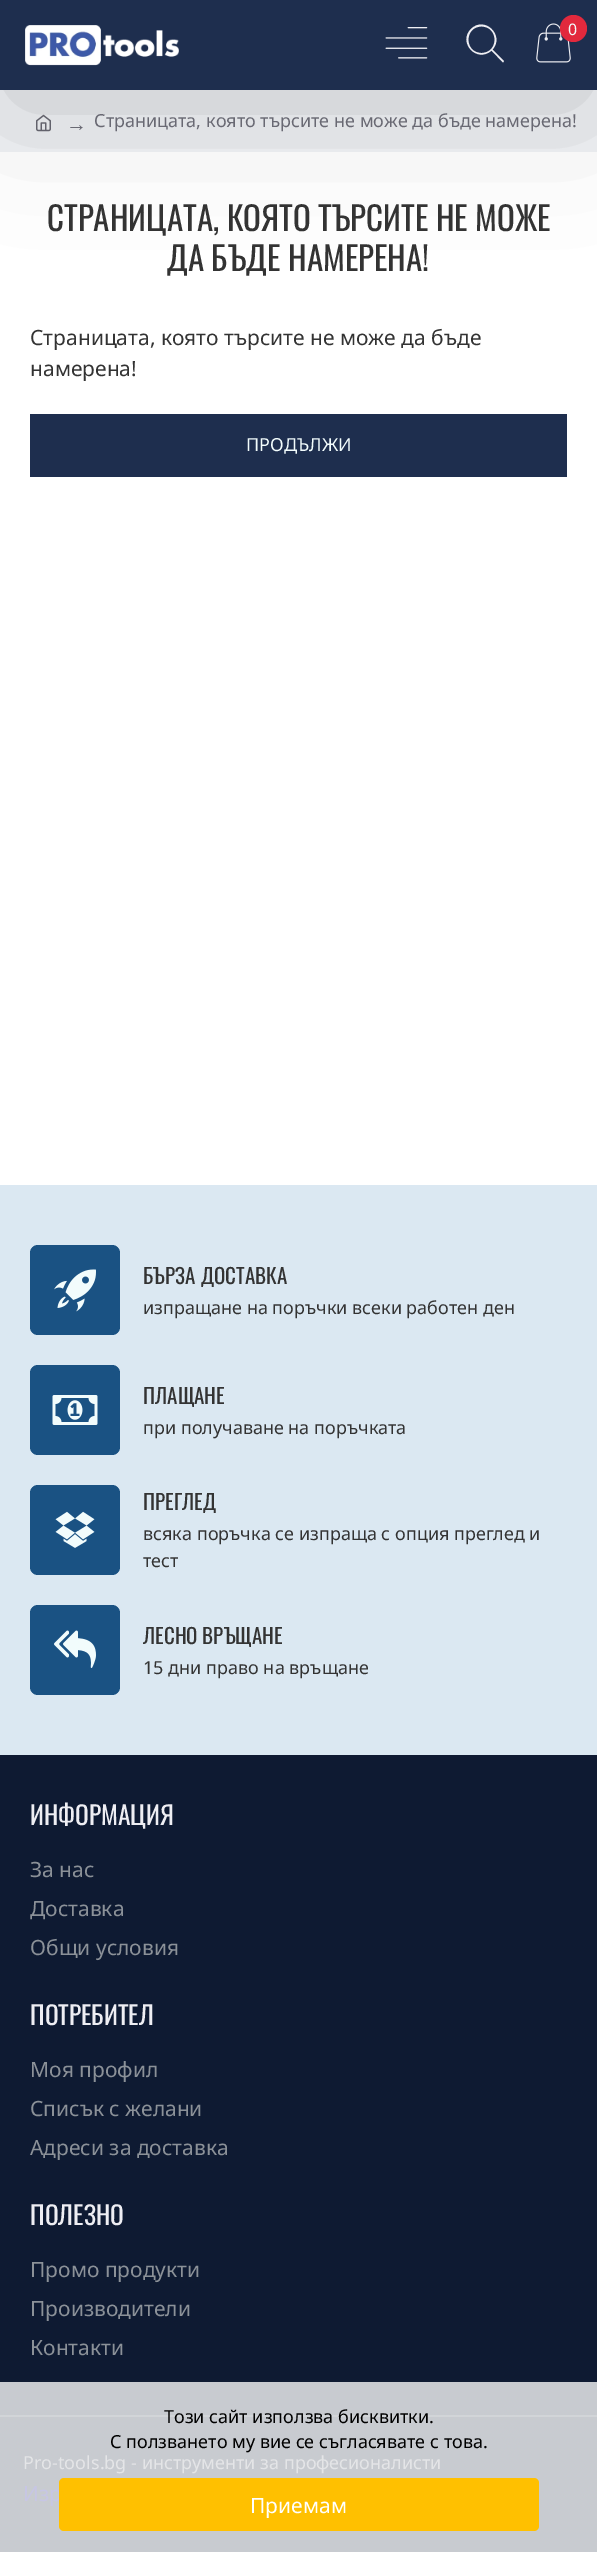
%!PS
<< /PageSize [597 2552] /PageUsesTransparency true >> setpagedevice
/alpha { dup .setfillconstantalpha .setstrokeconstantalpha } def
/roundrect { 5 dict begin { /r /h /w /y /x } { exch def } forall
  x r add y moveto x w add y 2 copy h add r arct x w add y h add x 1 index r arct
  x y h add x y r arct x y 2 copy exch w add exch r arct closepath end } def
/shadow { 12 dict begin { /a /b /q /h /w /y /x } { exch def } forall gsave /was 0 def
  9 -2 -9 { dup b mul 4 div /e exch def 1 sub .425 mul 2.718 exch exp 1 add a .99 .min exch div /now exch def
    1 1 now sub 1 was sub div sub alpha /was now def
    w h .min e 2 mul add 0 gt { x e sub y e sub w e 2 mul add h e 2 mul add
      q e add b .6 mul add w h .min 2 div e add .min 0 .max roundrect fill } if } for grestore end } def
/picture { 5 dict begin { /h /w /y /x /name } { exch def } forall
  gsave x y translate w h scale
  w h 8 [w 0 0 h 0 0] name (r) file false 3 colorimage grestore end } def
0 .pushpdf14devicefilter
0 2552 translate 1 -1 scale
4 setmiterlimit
1 setgray
0 0 597 2552 rectfill
0.941 0.949 0.961 setrgbcolor
0 90 597 62 rectfill
(img4.rgb) 36 114 15 18 picture
0 setgray
15 38 567 60 0 67.5 0.2 shadow
0.118 0.18 0.306 setrgbcolor
0 0 597 90 rectfill
(img1.rgb) 25 25 154 41 picture
(img2.rgb) 385 27 43 32 picture
0.933 0.933 0.953 setrgbcolor
newpath 491.5 50.5 moveto 503 62.5 lineto 504 61 lineto 492.5 49.5 lineto 505 35.5 484.5 15.5 471 29 curveto 457.5 42.5 477 63.5 491.5 50.5 curveto closepath 481.5 26.5 moveto 499 26.5 499 53 481.5 53 curveto 464 53 464 26.5 481.5 26.5 curveto closepath fill
(img3.rgb) 536 23 35 40 picture
0.886 0.161 0.239 setrgbcolor
newpath 573.5 28.5 13.5 0 360 arc closepath fill
/NotoSans-Regular [16 0 0 -16 0 0] selectfont
0.949 0.988 0.988 setrgbcolor
568 35 moveto (0) show
/LiberationSerif-Regular [21 0 0 -21 0 0] selectfont
0.412 0.412 0.451 setrgbcolor
66 131 moveto (→) show
/NotoSans-Regular [18 0 0 -18 0 0] selectfont
94 127 moveto (Страницата, която търсите не може да бъде намерена!) show
/Oswald-Regular [33 0 0 -33 0 0] selectfont
0.2 setgray
47 231 moveto (СТРАНИЦАТА, КОЯТО ТЪРСИТЕ НЕ МОЖЕ) show
167 271 moveto (ДА БЪДЕ НАМЕРЕНА!) show
/NotoSans-Regular [21 0 0 -21 0 0] selectfont
30 345 moveto (Страницата, която търсите не може да бъде) show
30 376 moveto (намерена!) show
0.118 0.18 0.306 setrgbcolor
30 414 537 63 rectfill
/NotoSans-Regular [18 0 0 -18 0 0] selectfont
0.949 0.988 0.988 setrgbcolor
246 451 moveto (ПРОДЪЛЖИ) show
0.055 0.102 0.196 setrgbcolor
0 1755 597 627 rectfill
0.784 0.796 0.816 setrgbcolor
0 2382 597 170 rectfill
0.859 0.91 0.949 setrgbcolor
0 1185 597 570 rectfill
0.102 0.322 0.514 setrgbcolor
30 1245 90 90 8 roundrect fill
(img5.rgb) 54 1269 42 43 picture
/Oswald-Regular [21 0 0 -21 0 0] selectfont
0.2 setgray
143 1284 moveto (БЪРЗА ДОСТАВКА) show
/NotoSans-Regular [18 0 0 -18 0 0] selectfont
143 1314 moveto (изпращане на поръчки всеки работен ден) show
0.102 0.322 0.514 setrgbcolor
30 1365 90 90 8 roundrect fill
(img6.rgb) 52 1395 46 30 picture
/Oswald-Regular [21 0 0 -21 0 0] selectfont
0.2 setgray
143 1404 moveto (ПЛАЩАНЕ) show
/NotoSans-Regular [18 0 0 -18 0 0] selectfont
143 1434 moveto (при получаване на поръчката) show
0.102 0.322 0.514 setrgbcolor
30 1485 90 90 8 roundrect fill
(img7.rgb) 55 1511 40 37 picture
/Oswald-Regular [21 0 0 -21 0 0] selectfont
0.2 setgray
143 1510 moveto (ПРЕГЛЕД) show
/NotoSans-Regular [18 0 0 -18 0 0] selectfont
143 1540 moveto (всяка поръчка се изпраща с опция преглед и) show
143 1567 moveto (тест) show
0.102 0.322 0.514 setrgbcolor
30 1605 90 90 8 roundrect fill
(img8.rgb) 54 1630 42 38 picture
/Oswald-Regular [21 0 0 -21 0 0] selectfont
0.2 setgray
143 1644 moveto (ЛЕСНО ВРЪЩАНЕ) show
/NotoSans-Regular [18 0 0 -18 0 0] selectfont
143 1674 moveto (15 дни право на връщане) show
/Oswald-Regular [25.5 0 0 -25.5 0 0] selectfont
0.933 0.933 0.953 setrgbcolor
30 1825 moveto (ИНФОРМАЦИЯ) show
/NotoSans-Regular [21 0 0 -21 0 0] selectfont
0.545 0.569 0.596 setrgbcolor
30 1877 moveto (За нас) show
30 1916 moveto (Доставка) show
30 1955 moveto (Общи условия) show
/Oswald-Regular [25.5 0 0 -25.5 0 0] selectfont
0.933 0.933 0.953 setrgbcolor
30 2025 moveto (ПОТРЕБИТЕЛ) show
/NotoSans-Regular [21 0 0 -21 0 0] selectfont
0.545 0.569 0.596 setrgbcolor
30 2077 moveto (Моя профил) show
30 2116 moveto (Списък с желани) show
30 2155 moveto (Адреси за доставка) show
/Oswald-Regular [25.5 0 0 -25.5 0 0] selectfont
0.933 0.933 0.953 setrgbcolor
30 2225 moveto (ПОЛЕЗНО) show
/NotoSans-Regular [21 0 0 -21 0 0] selectfont
0.545 0.569 0.596 setrgbcolor
30 2277 moveto (Промо продукти) show
30 2316 moveto (Производители) show
30 2355 moveto (Контакти) show
0.824 0.835 0.847 setrgbcolor
0 2415 597 2 rectfill
/NotoSans-Regular [18 0 0 -18 0 0] selectfont
0.894 0.898 0.906 setrgbcolor
23 2469 moveto (Pro-tools.bg - инструменти за професионалисти) show
/NotoSans-Regular [21 0 0 -21 0 0] selectfont
0.78 0.776 0.894 setrgbcolor
23 2501 moveto (Изр) show
/NotoSans-Regular [18 0 0 -18 0 0] selectfont
0 setgray
164 2423 moveto (Този сайт използва бисквитки.) show
110 2448 moveto (С ползването му вие се съгласявате с това.) show
1 0.753 0 setrgbcolor
59 2478 480 53 5 roundrect fill
/NotoSans-Regular [21 0 0 -21 0 0] selectfont
1 setgray
250 2513 moveto (Приемам) show
.poppdf14devicefilter showpage
